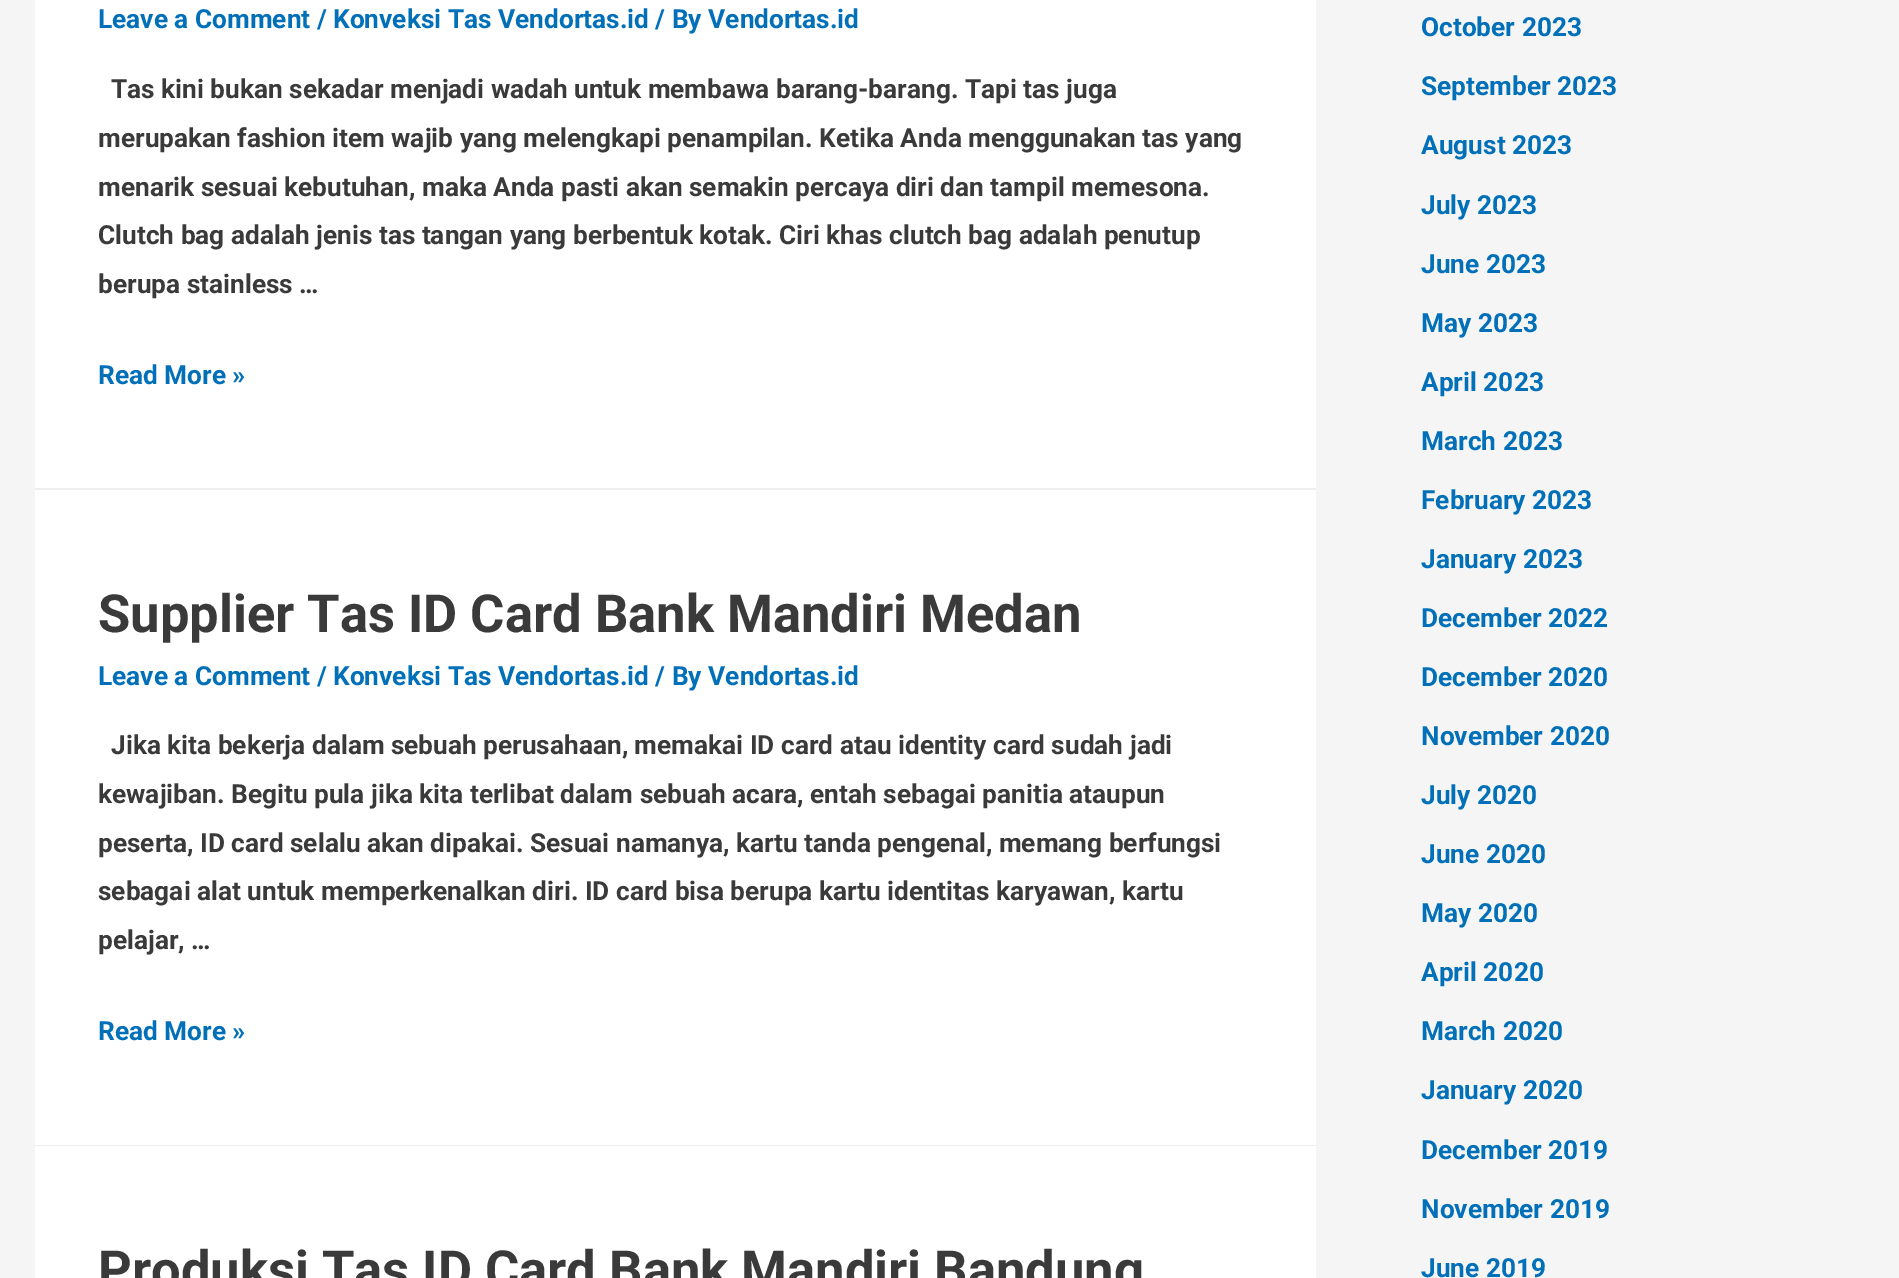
%!PS
<< /PageSize [1899 1278] >> setpagedevice
0 1278 translate 1 -1 scale
4 setmiterlimit
0.961 setgray
0 0 1899 1278 rectfill
1 setgray
35 0 1281 488 rectfill
0.933 setgray
35 488 1281 2 rectfill
/Roboto-Bold [26.25 0 0 -26.25 0 0] selectfont
0.004 0.439 0.725 setrgbcolor
98 28 moveto (Leave a Comment / Konveksi Tas Vendortas.id / By Vendortas.id) show
0.227 setgray
111 98 moveto (Tas kini bukan sekadar menjadi wadah untuk membawa barang-barang. Tapi tas juga) show
98 147 moveto (merupakan fashion item wajib yang melengkapi penampilan. Ketika Anda menggunakan tas yang) show
98 196 moveto (menarik sesuai kebutuhan, maka Anda pasti akan semakin percaya diri dan tampil memesona.) show
98 244 moveto (Clutch bag adalah jenis tas tangan yang berbentuk kotak. Ciri khas clutch bag adalah penutup) show
98 293 moveto (berupa stainless …) show
0.004 0.439 0.725 setrgbcolor
98 384 moveto (Read More ») show
1 setgray
35 490 1281 655 rectfill
0.933 setgray
35 1145 1281 1 rectfill
/Roboto-Bold [52.5 0 0 -52.5 0 0] selectfont
0.227 setgray
98 632 moveto (Supplier Tas ID Card Bank Mandiri Medan) show
/Roboto-Bold [26.25 0 0 -26.25 0 0] selectfont
0.004 0.439 0.725 setrgbcolor
98 685 moveto (Leave a Comment / Konveksi Tas Vendortas.id / By Vendortas.id) show
0.227 setgray
111 754 moveto (Jika kita bekerja dalam sebuah perusahaan, memakai ID card atau identity card sudah jadi) show
98 803 moveto (kewajiban. Begitu pula jika kita terlibat dalam sebuah acara, entah sebagai panitia ataupun) show
98 852 moveto (peserta, ID card selalu akan dipakai. Sesuai namanya, kartu tanda pengenal, memang berfungsi) show
98 900 moveto (sebagai alat untuk memperkenalkan diri. ID card bisa berupa kartu identitas karyawan, kartu) show
98 949 moveto (pelajar, …) show
0.004 0.439 0.725 setrgbcolor
98 1040 moveto (Read More ») show
1 setgray
35 1146 1281 132 rectfill
/Roboto-Bold [52.5 0 0 -52.5 0 0] selectfont
0.227 setgray
98 1288 moveto (Produksi Tas ID Card Bank Mandiri Bandung) show
/Roboto-Bold [26.25 0 0 -26.25 0 0] selectfont
0.004 0.439 0.725 setrgbcolor
1421 36 moveto (October 2023) show
1421 95 moveto (September 2023) show
1421 154 moveto (August 2023) show
1421 214 moveto (July 2023) show
1421 273 moveto (June 2023) show
1421 332 moveto (May 2023) show
1421 391 moveto (April 2023) show
1421 450 moveto (March 2023) show
1421 509 moveto (February 2023) show
1421 568 moveto (January 2023) show
1421 627 moveto (December 2022) show
1421 686 moveto (December 2020) show
1421 745 moveto (November 2020) show
1421 804 moveto (July 2020) show
1421 863 moveto (June 2020) show
1421 922 moveto (May 2020) show
1421 981 moveto (April 2020) show
1421 1040 moveto (March 2020) show
1421 1099 moveto (January 2020) show
1421 1159 moveto (December 2019) show
1421 1218 moveto (November 2019) show
1421 1277 moveto (June 2019) show
showpage
